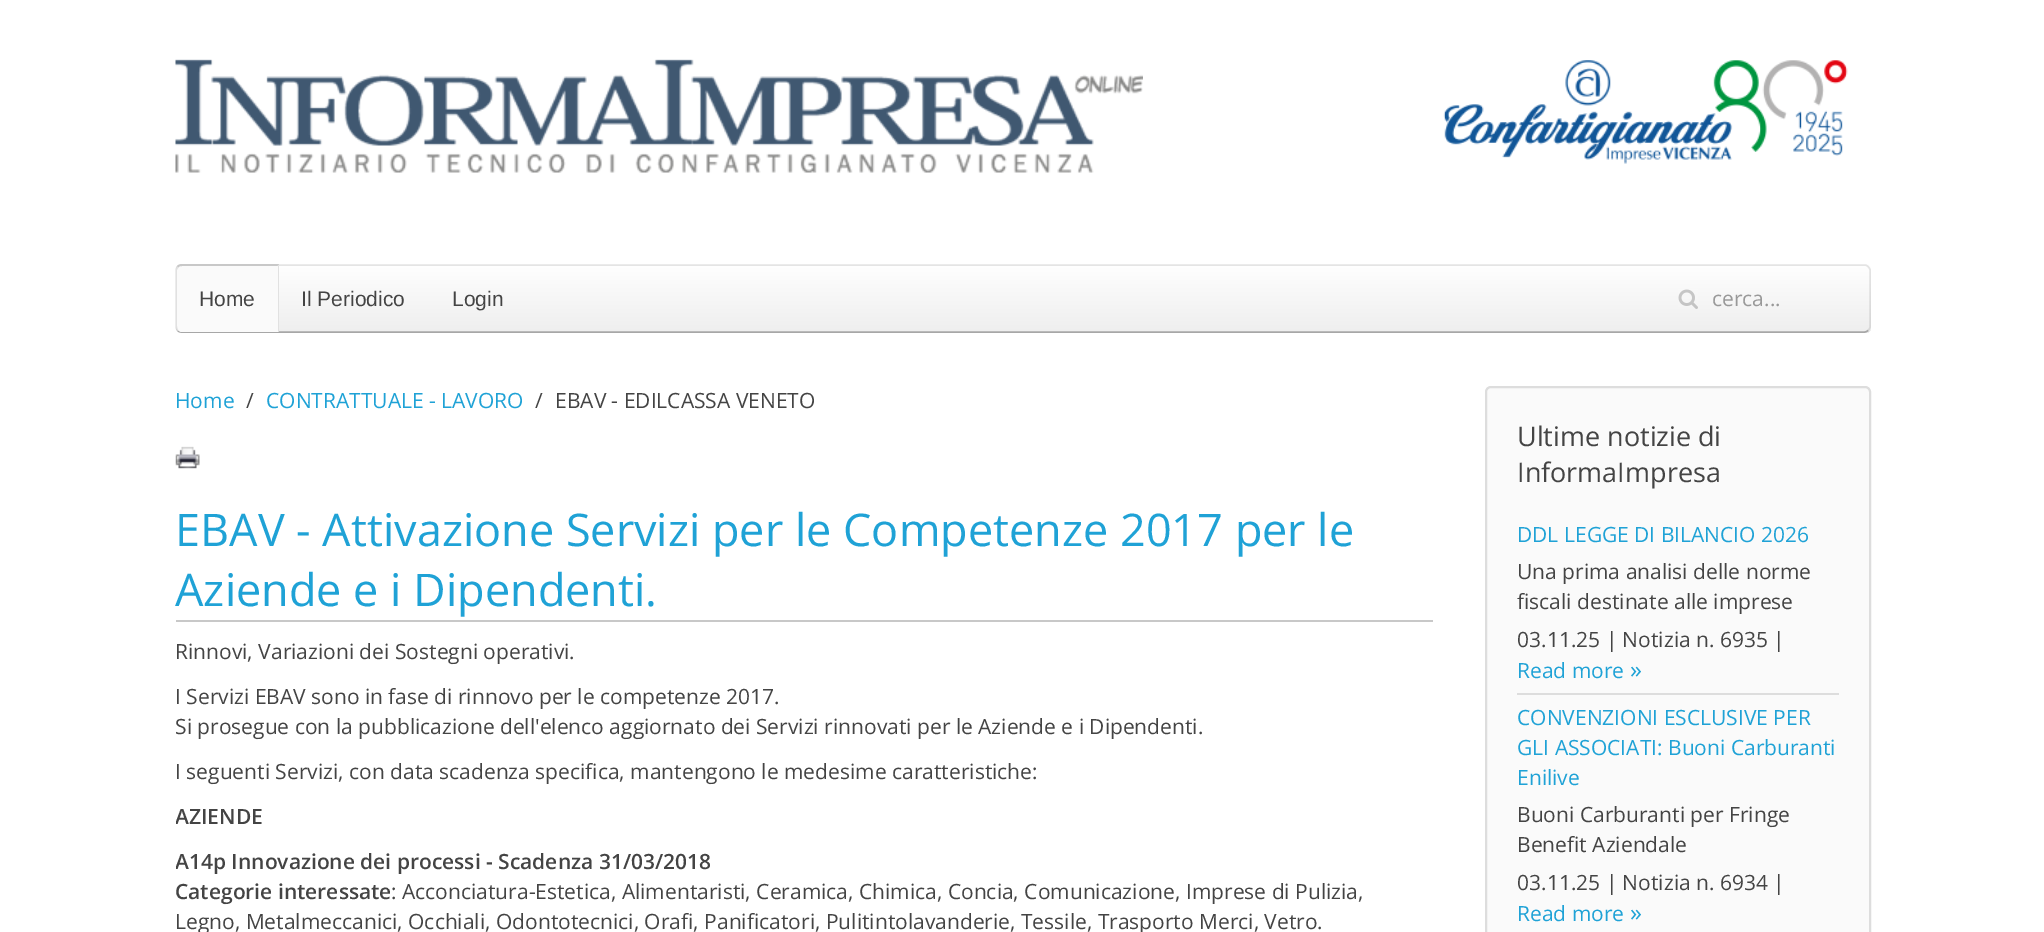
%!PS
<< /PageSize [2044 932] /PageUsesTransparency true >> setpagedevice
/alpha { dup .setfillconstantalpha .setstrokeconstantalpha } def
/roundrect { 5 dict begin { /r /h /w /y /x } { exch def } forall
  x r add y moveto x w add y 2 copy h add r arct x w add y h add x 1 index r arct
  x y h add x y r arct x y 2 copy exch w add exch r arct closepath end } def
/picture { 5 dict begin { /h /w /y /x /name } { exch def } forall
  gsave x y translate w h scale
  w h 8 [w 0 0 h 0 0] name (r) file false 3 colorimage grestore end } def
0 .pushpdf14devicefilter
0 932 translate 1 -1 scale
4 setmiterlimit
1 setgray
0 0 2044 932 rectfill
(img1.rgb) 175 59 968 114 picture
(img2.rgb) 1443 60 405 104 picture
gsave 176 264 1695 69 6 roundrect clip newpath
<< /ShadingType 2 /ColorSpace /DeviceRGB /Coords [1023 264 1023 333] /Extend [true true] /Function << /FunctionType 2 /Domain [0 1] /C0 [1 1 1] /C1 [0.933 0.933 0.933] /N 1 >> >> shfill grestore
0.655 setgray
1.5 setlinewidth
newpath 1868 330.5 moveto 1867 331.5 1866 332 1864.5 332 curveto 181.5 332 lineto 180 332 179 331.5 178 330.5 curveto stroke
0.1 alpha
0 setgray
newpath 178 330.5 moveto 177 329.5 176 328.5 176 327 curveto 176 270 lineto 176 268.5 177 267.5 178 266.5 curveto 179 265.5 180 265 181.5 265 curveto 1864.5 265 lineto 1866 265 1867 265.5 1868 266.5 curveto 1869 267.5 1870 268.5 1870 270 curveto 1870 327 lineto 1870 328.5 1869 329.5 1868 330.5 curveto stroke
1 alpha
0.98 setgray
newpath 182 264 moveto 279 264 lineto 279 332 lineto 182 332 lineto 178.5 332 176 329.5 176 326 curveto 176 270 lineto 176 266.5 178.5 264 182 264 curveto closepath fill
0.2 alpha
0 setgray
newpath 182 264 moveto 279 264 lineto 277 266 lineto 182 266 lineto 181 266 179 266 179 267 curveto 177 266 lineto 178 265 180 264 182 264 curveto closepath fill
0.1 alpha
newpath 279 264 moveto 279 332 lineto 278 332 lineto 278 266 lineto 277 266 lineto closepath fill
newpath 180 332 moveto 179 332 lineto 177 331 176 328 176 326 curveto 176 270 lineto 176 269 176 267 177 266 curveto 179 267 lineto 178 268 177 269 177 270 curveto 177 326 lineto 177 328 178 331 180 332 curveto closepath fill
/LiberationSans-Regular [21 0 0 -21 0 0] selectfont
1 alpha
0.267 setgray
199 306 moveto (Home) show
301 306 moveto (Il Periodico) show
452 306 moveto (Login) show
(img3.rgb) 1678 289 20 20 picture
/OpenSans-Regular [21 0 0 -21 0 0] selectfont
0.6 setgray
1712 306 moveto (cerca...) show
0.122 0.635 0.839 setrgbcolor
175 408 moveto (Home) show
0.267 setgray
246 408 moveto (/) show
0.122 0.635 0.839 setrgbcolor
266 408 moveto (CONTRATTUALE - LAVORO) show
0.267 setgray
535 408 moveto (/) show
555 408 moveto (EBAV - EDILCASSA VENETO) show
(img4.rgb) 175 446 25 23 picture
0.784 setgray
176 620 1257 2 rectfill
/OpenSans-Regular [45 0 0 -45 0 0] selectfont
0.122 0.635 0.839 setrgbcolor
175 546 moveto (EBAV - Attivazione Servizi per le Competenze 2017 per le) show
175 606 moveto (Aziende e i Dipendenti.) show
/OpenSans-Regular [21 0 0 -21 0 0] selectfont
0.267 setgray
175 659 moveto (Rinnovi, Variazioni dei Sostegni operativi.) show
175 704 moveto (I Servizi EBAV sono in fase di rinnovo per le competenze 2017.) show
175 734 moveto (Si prosegue con la pubblicazione dell'elenco aggiornato dei Servizi rinnovati per le Aziende e i Dipendenti.) show
175 779 moveto (I seguenti Servizi, con data scadenza specifica, mantengono le medesime caratteristiche:) show
gsave
176 801 1257 30 rectclip
/OpenSans-SemiBold [21 0 0 -21 0 0] selectfont
175 824 moveto (AZIENDE) show
grestore
gsave
176 846 1257 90 rectclip
/OpenSans-SemiBold [21 0 0 -21 0 0] selectfont
175 869 moveto (A14p Innovazione dei processi - Scadenza 31/03/2018) show
grestore
/OpenSans-SemiBold [21 0 0 -21 0 0] selectfont
175 899 moveto (Categorie interessate) show
/OpenSans-Regular [21 0 0 -21 0 0] selectfont
391 899 moveto (: Acconciatura-Estetica, Alimentaristi, Ceramica, Chimica, Concia, Comunicazione, Imprese di Pulizia,) show
175 929 moveto (Legno, Metalmeccanici, Occhiali, Odontotecnici, Orafi, Panificatori, Pulitintolavanderie, Tessile, Trasporto Merci, Vetro.) show
0.98 setgray
1486 387 384 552 5 roundrect gsave fill grestore
0.867 setgray
2 setlinewidth
stroke
/OpenSans-Regular [27 0 0 -27 0 0] selectfont
0.267 setgray
1517 446 moveto (Ultime notizie di) show
1517 482 moveto (InformaImpresa) show
/OpenSans-Regular [21 0 0 -21 0 0] selectfont
0.122 0.635 0.839 setrgbcolor
1517 542 moveto (DDL LEGGE DI BILANCIO 2026) show
0.267 setgray
1517 579 moveto (Una prima analisi delle norme) show
1517 609 moveto (fiscali destinate alle imprese) show
1517 647 moveto (03.11.25 | Notizia n. 6935 |) show
0.122 0.635 0.839 setrgbcolor
1517 678 moveto (Read more) show
/OpenSans-Regular [24 0 0 -24 0 0] selectfont
1630 678 moveto (») show
0.867 setgray
1517 693 322 2 rectfill
/OpenSans-Regular [21 0 0 -21 0 0] selectfont
0.122 0.635 0.839 setrgbcolor
1517 725 moveto (CONVENZIONI ESCLUSIVE PER) show
1517 755 moveto (GLI ASSOCIATI: Buoni Carburanti) show
1517 785 moveto (Enilive) show
0.267 setgray
1517 822 moveto (Buoni Carburanti per Fringe) show
1517 852 moveto (Benefit Aziendale) show
1517 890 moveto (03.11.25 | Notizia n. 6934 |) show
0.122 0.635 0.839 setrgbcolor
1517 921 moveto (Read more) show
/OpenSans-Regular [24 0 0 -24 0 0] selectfont
1630 921 moveto (») show
.poppdf14devicefilter showpage
